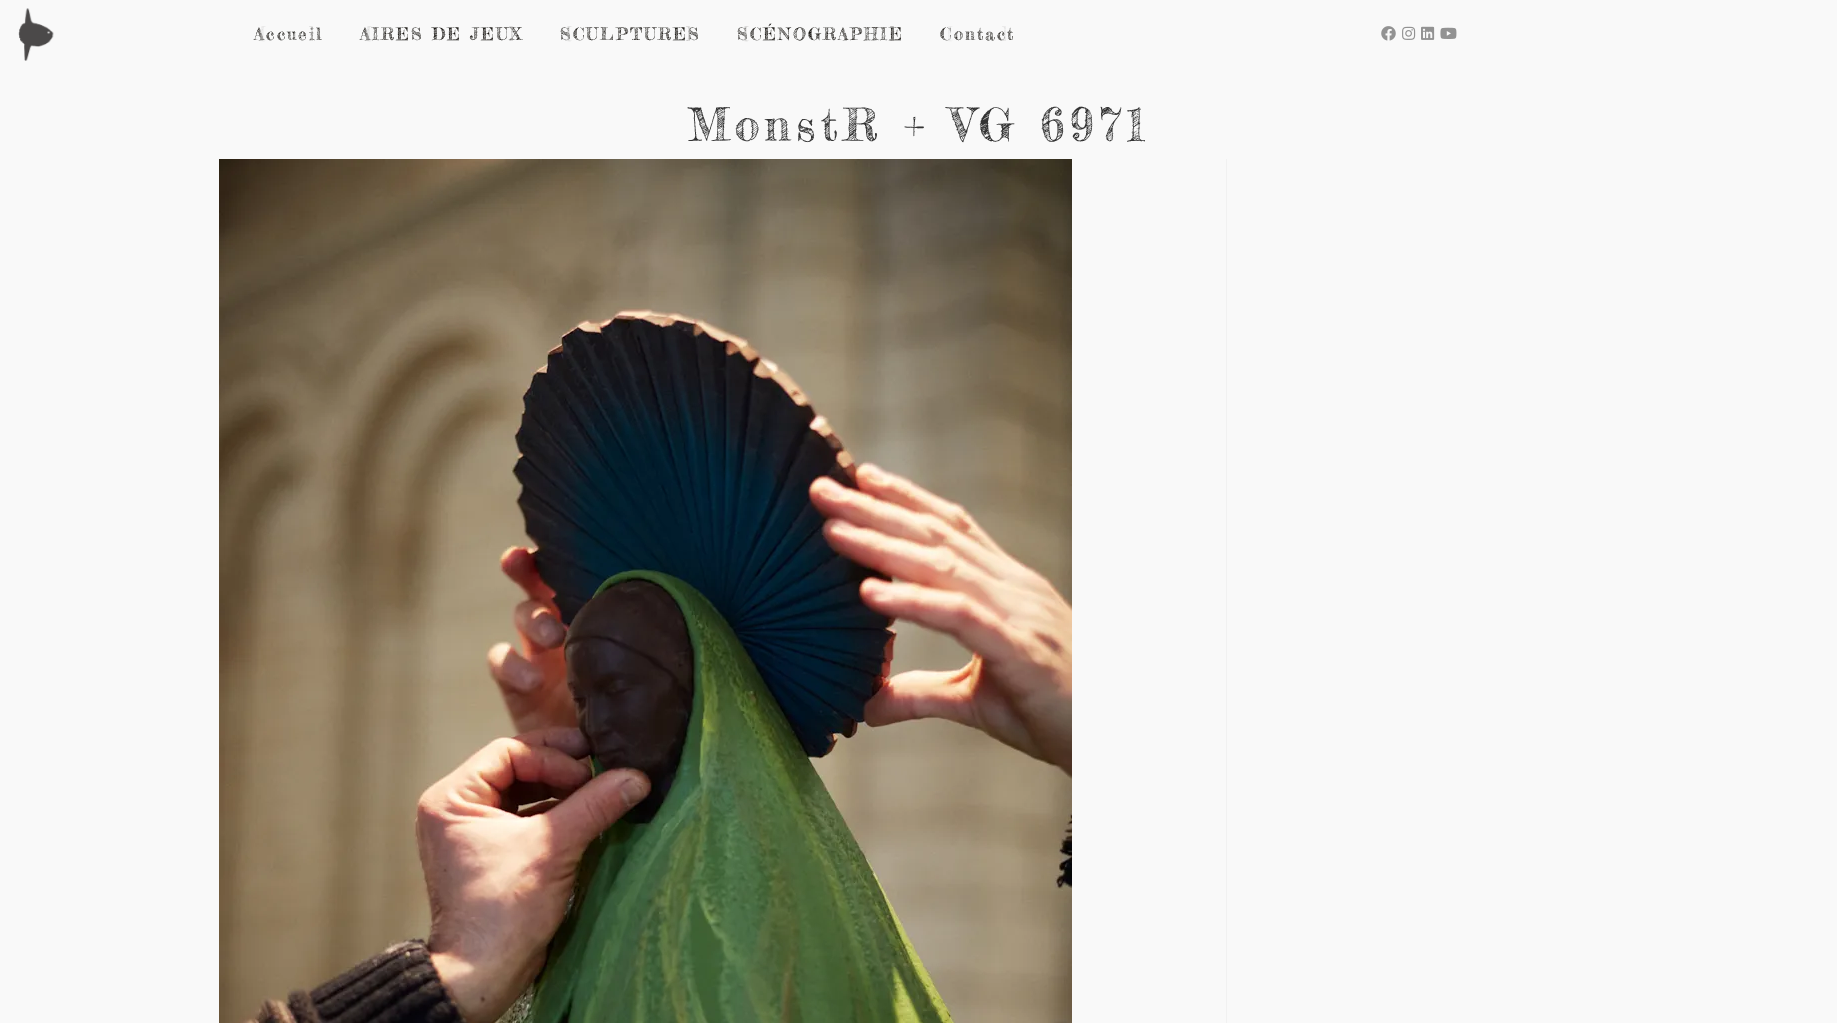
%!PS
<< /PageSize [1837 1023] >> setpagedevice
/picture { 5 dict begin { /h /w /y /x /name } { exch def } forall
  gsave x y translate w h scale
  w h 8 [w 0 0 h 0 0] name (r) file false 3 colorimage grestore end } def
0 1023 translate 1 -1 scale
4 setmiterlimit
0.976 setgray
0 0 1837 1023 rectfill
(img1.rgb) 18 8 36 53 picture
/FrederickatheGreat-Regular [17 0 0 -17 0 0] selectfont
0.09 0.082 0.067 setrgbcolor
254 40 moveto 2 0 (Accueil) ashow
0.875 0.871 0.871 setrgbcolor
260 40 moveto 2 0 ([) ashow
0.812 0.812 0.808 setrgbcolor
309 40 moveto 2 0 (]) ashow
0.09 0.082 0.067 setrgbcolor
360 40 moveto 2 0 (AIRES DE JEUX) ashow
0.835 0.835 0.831 setrgbcolor
366 40 moveto 2 0 ([) ashow
0.765 0.761 0.757 setrgbcolor
509 40 moveto 2 0 (]) ashow
0.09 0.082 0.067 setrgbcolor
560 40 moveto 2 0 (SCULPTURES) ashow
0.812 0.812 0.808 setrgbcolor
566 40 moveto 2 0 ([) ashow
0.765 0.761 0.757 setrgbcolor
686 40 moveto 2 0 (]) ashow
0.09 0.082 0.067 setrgbcolor
737 40 moveto 2 0 (SCÉNOGRAPHIE) ashow
0.765 0.761 0.757 setrgbcolor
743 40 moveto 2 0 ([) ashow
0.525 0.522 0.514 setrgbcolor
890 40 moveto 2 0 (]) ashow
0.09 0.082 0.067 setrgbcolor
940 40 moveto 2 0 (Contact) ashow
0.898 setgray
947 40 moveto 2 0 ([) ashow
0.875 0.871 0.871 setrgbcolor
1002 40 moveto 2 0 (]) ashow
(img2.rgb) 1381 26 15 15 picture
(img3.rgb) 1402 26 14 14 picture
(img4.rgb) 1421 26 14 14 picture
(img5.rgb) 1440 27 17 12 picture
/FrederickatheGreat-Regular [45 0 0 -45 0 0] selectfont
0.2 setgray
688 141 moveto 5.25 0 (MonstR + VG 6971) ashow
0.945 setgray
1226 159 1 864 rectfill
(img6.rgb) 219 159 853 864 picture
showpage
